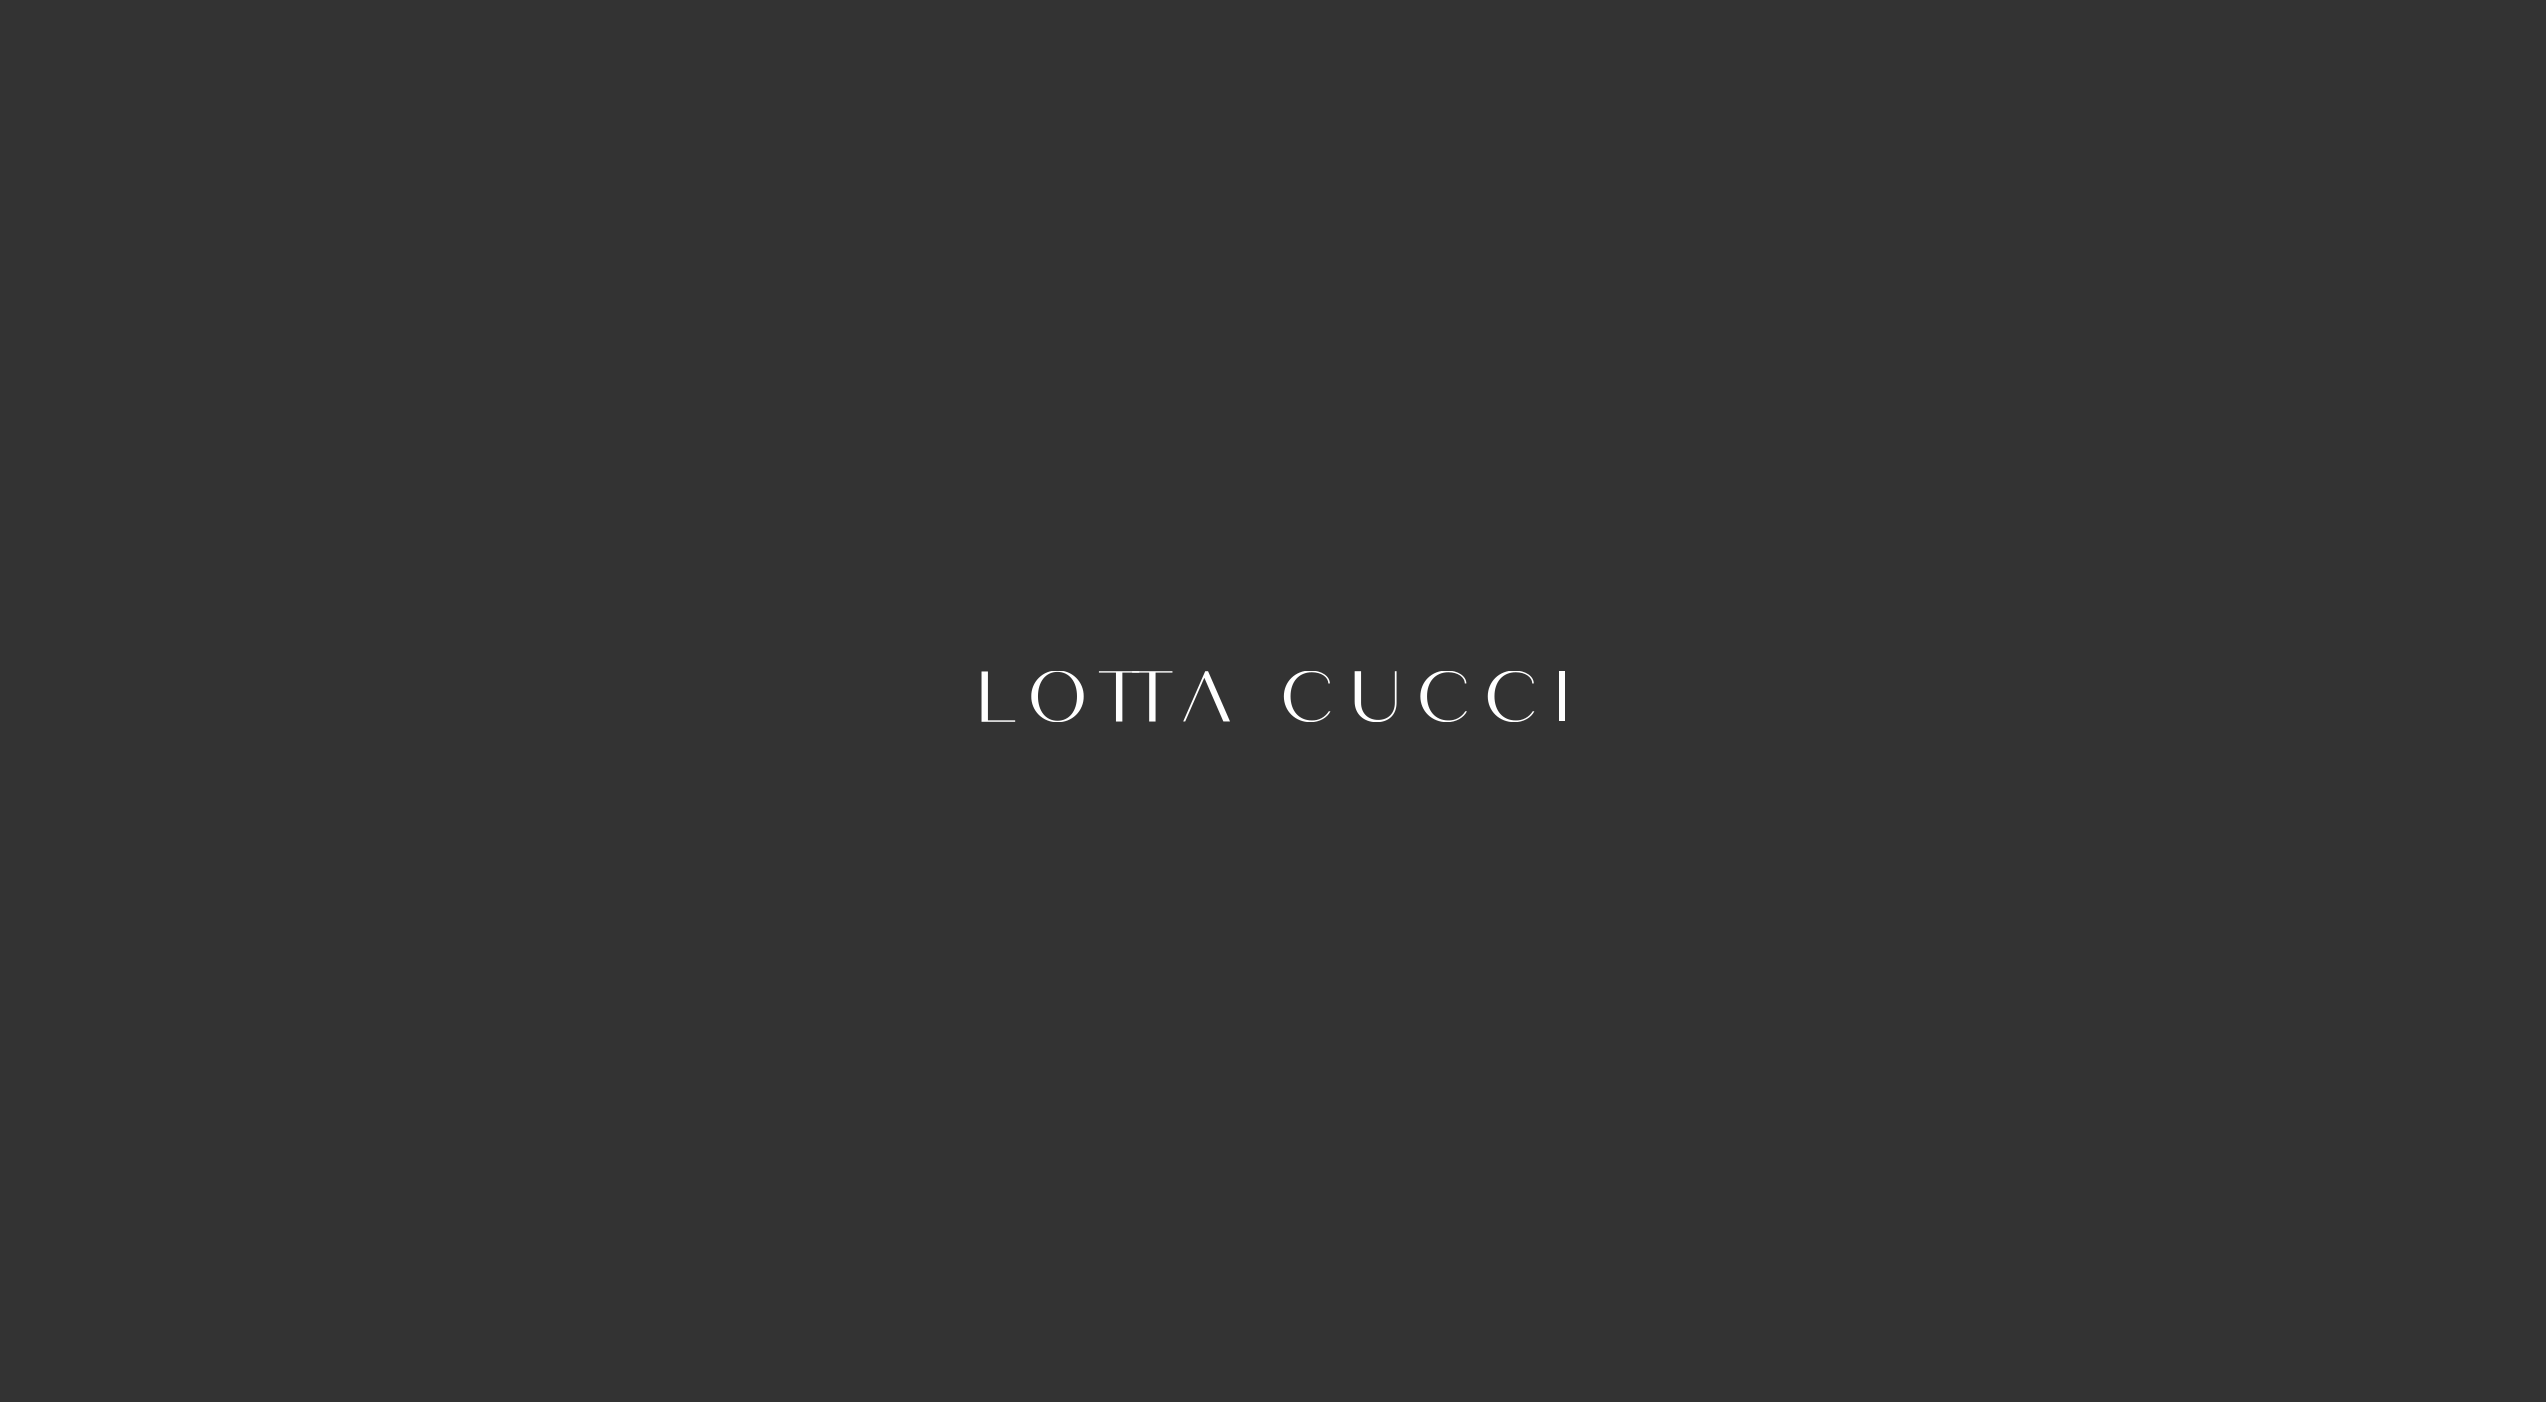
%!PS
<< /PageSize [2546 1402] >> setpagedevice
/picture { 5 dict begin { /h /w /y /x /name } { exch def } forall
  gsave x y translate w h scale
  w h 8 [w 0 0 h 0 0] name (r) file false 3 colorimage grestore end } def
0 1402 translate 1 -1 scale
4 setmiterlimit
0.2 setgray
0 0 2546 1402 rectfill
(img1.rgb) 981 671 584 51 picture
showpage
